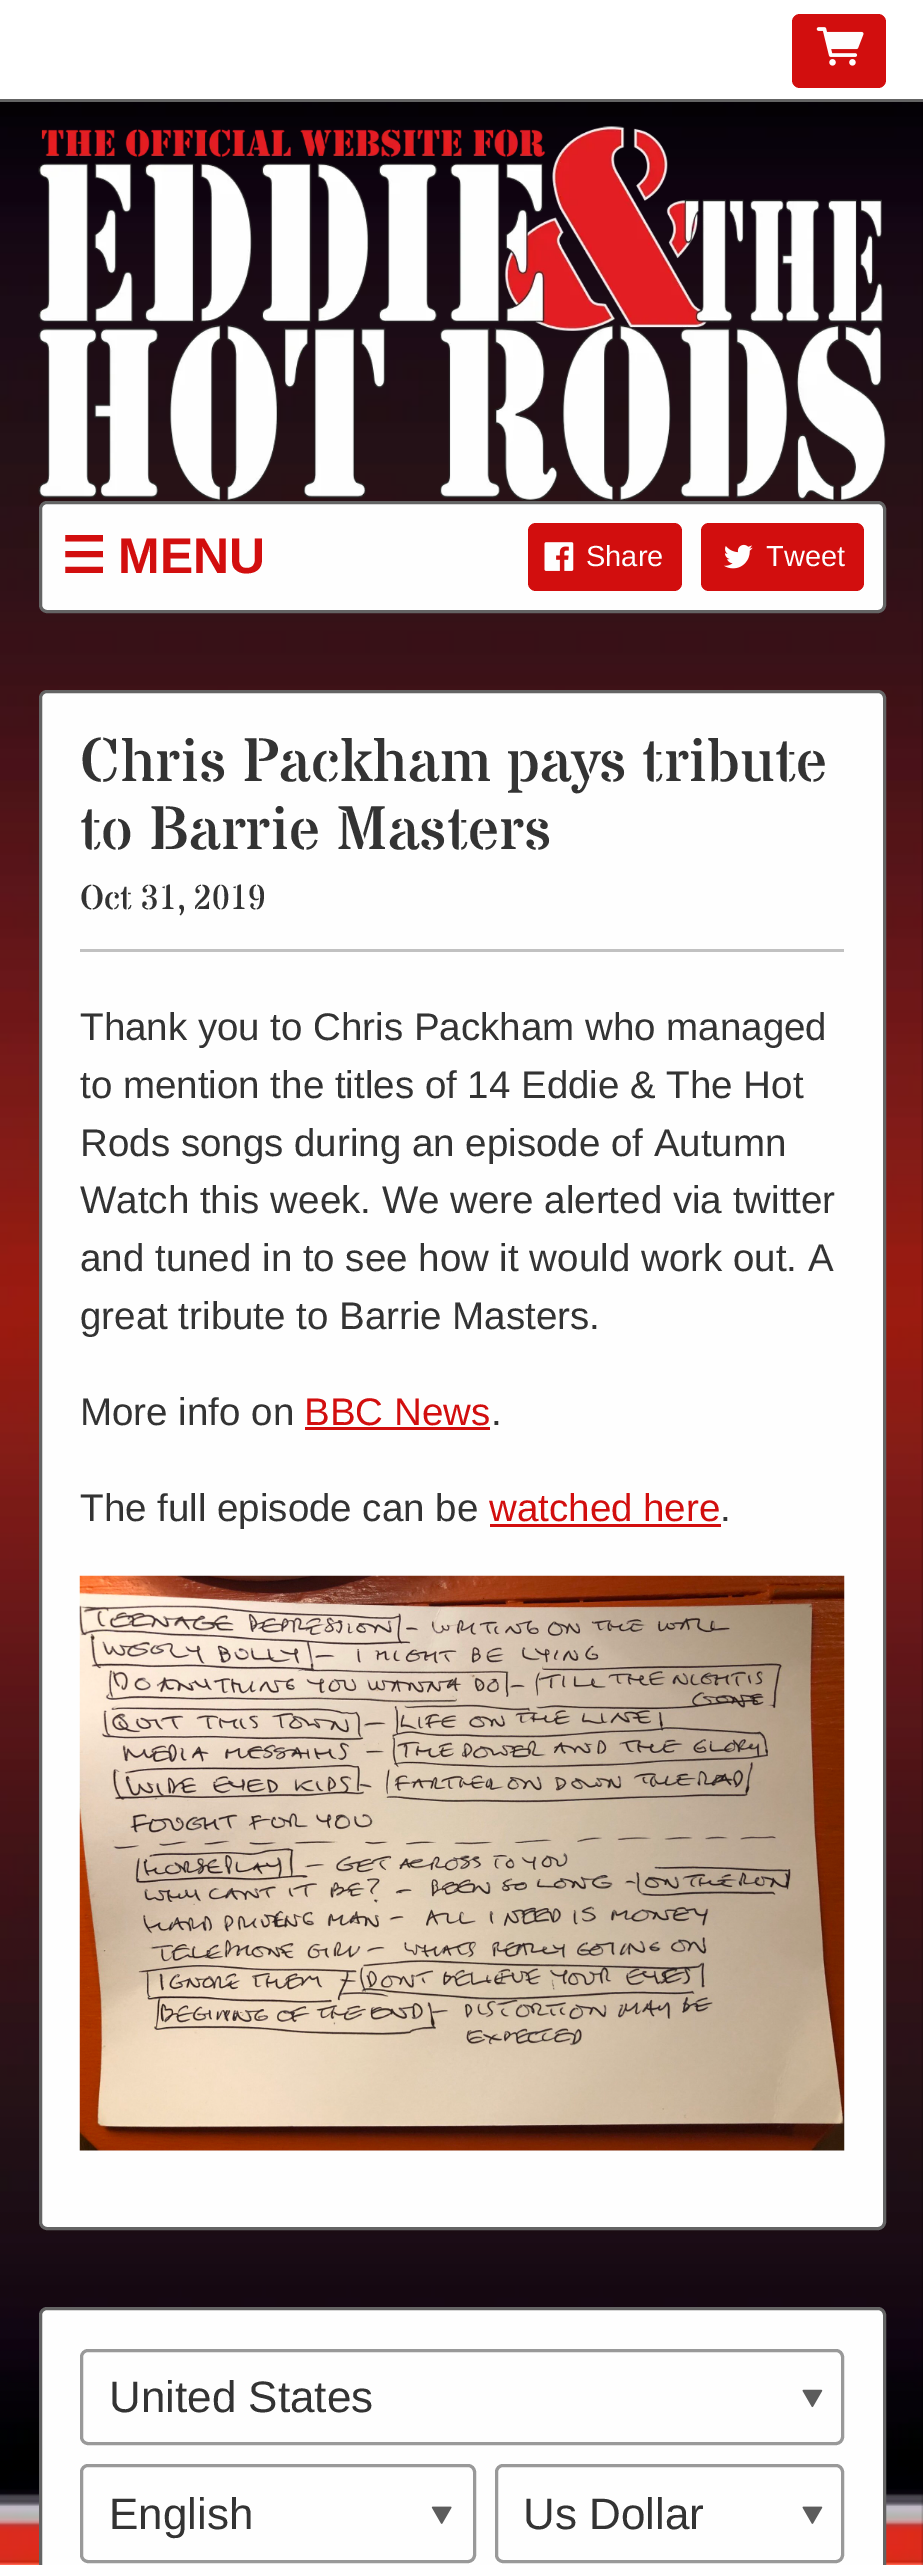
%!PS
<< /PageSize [923 2565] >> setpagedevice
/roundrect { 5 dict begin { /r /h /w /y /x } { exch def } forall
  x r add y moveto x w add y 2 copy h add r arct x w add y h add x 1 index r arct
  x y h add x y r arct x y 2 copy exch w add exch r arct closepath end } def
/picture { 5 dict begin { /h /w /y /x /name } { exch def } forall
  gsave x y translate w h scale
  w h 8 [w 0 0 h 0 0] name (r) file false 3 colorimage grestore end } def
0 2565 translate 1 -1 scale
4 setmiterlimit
1 setgray
0 0 923 2565 rectfill
(img1.rgb) 0 102 923 2463 picture
0.392 setgray
0 99 923 3 rectfill
0.824 0.055 0.055 setrgbcolor
792 14 94 74 8 roundrect fill
(img2.rgb) 816 27 48 39 picture
(img3.rgb) 38 126 848 375 picture
0.996 setgray
40.5 502.5 844 109 6.5 roundrect gsave fill grestore
0.392 setgray
3 setlinewidth
stroke
/DejaVuSans-Bold [50 0 0 -50 0 0] selectfont
0.824 0.055 0.055 setrgbcolor
61 573 moveto (☰) show
/LiberationSans-Bold [50 0 0 -50 0 0] selectfont
118 573 moveto (MENU) show
528 523 154 68 8 roundrect fill
(img4.rgb) 544 542 30 29 picture
/LiberationSans-Regular [29 0 0 -29 0 0] selectfont
0.996 setgray
586 566 moveto (Share) show
0.824 0.055 0.055 setrgbcolor
701 523 163 68 8 roundrect fill
(img5.rgb) 724 544 29 25 picture
0.996 setgray
766 566 moveto (Tweet) show
40.5 691.5 844 1537 6.5 roundrect gsave fill grestore
0.392 setgray
stroke
0.757 setgray
80 949 764 3 rectfill
/StardosStencil-Regular [61.6 0 0 -61.6 0 0] selectfont
0.2 setgray
80 781 moveto (Chris Packham pays tribute) show
80 849 moveto (to Barrie Masters) show
/StardosStencil-Regular [34.5 0 0 -34.5 0 0] selectfont
80 909 moveto (Oct 31, 2019) show
/LiberationSans-Regular [38.5 0 0 -38.5 0 0] selectfont
80 1040 moveto (Thank you to Chris Packham who managed) show
80 1098 moveto (to mention the titles of 14 Eddie & The Hot) show
80 1156 moveto (Rods songs during an episode of Autumn) show
80 1213 moveto (Watch this week. We were alerted via twitter) show
80 1271 moveto (and tuned in to see how it would work out. A) show
80 1329 moveto (great tribute to Barrie Masters.) show
80 1425 moveto (More info on) show
0.824 0.055 0.055 setrgbcolor
304 1425 moveto (BBC News) show
305 1427 185 3 rectfill
0.2 setgray
491 1425 moveto (.) show
80 1521 moveto (The full episode can be) show
0.824 0.055 0.055 setrgbcolor
489 1521 moveto (watched here) show
490 1524 231 3 rectfill
0.2 setgray
720 1521 moveto (.) show
(img6.rgb) 79 1575 766 576 picture
0.996 setgray
40.5 2308.5 844 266 6.5 roundrect gsave fill grestore
0.392 setgray
stroke
0.6 setgray
81.5 2350.5 761 93 6.5 roundrect stroke
/LiberationSans-Regular [44 0 0 -44 0 0] selectfont
0.2 setgray
109 2412 moveto (United States) show
(img7.rgb) 802 2389 21 19 picture
0.6 setgray
81.5 2465.5 393 96 6.5 roundrect stroke
0.2 setgray
109 2529 moveto (English) show
(img8.rgb) 431 2506 21 18 picture
0.6 setgray
496.5 2465.5 346 96 6.5 roundrect stroke
0.2 setgray
523 2529 moveto (Us Dollar) show
(img9.rgb) 802 2506 21 18 picture
showpage
